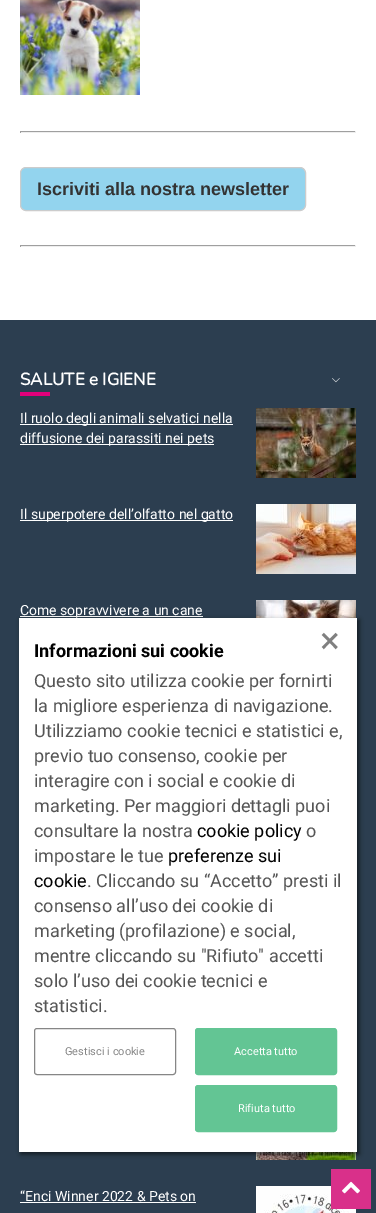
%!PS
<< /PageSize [376 1213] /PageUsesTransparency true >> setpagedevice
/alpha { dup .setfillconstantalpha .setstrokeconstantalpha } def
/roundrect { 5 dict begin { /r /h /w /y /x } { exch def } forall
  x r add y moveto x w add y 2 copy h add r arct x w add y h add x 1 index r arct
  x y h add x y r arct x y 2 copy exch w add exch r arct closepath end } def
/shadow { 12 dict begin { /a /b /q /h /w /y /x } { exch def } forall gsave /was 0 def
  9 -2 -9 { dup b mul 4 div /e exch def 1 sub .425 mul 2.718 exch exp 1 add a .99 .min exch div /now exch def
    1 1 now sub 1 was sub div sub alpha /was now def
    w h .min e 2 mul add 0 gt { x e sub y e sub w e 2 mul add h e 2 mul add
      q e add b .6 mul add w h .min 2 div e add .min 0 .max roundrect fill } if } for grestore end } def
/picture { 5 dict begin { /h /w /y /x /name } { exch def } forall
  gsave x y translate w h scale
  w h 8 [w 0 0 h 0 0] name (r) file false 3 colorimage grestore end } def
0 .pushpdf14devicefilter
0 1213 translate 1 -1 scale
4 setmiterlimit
1 setgray
0 0 376 1213 rectfill
(img1.rgb) 20 0 120 95 picture
0.624 setgray
20 131 336 1 rectfill
0.933 setgray
355 131 1 2 rectfill
20 132 336 1 rectfill
0.624 setgray
20 131 1 2 rectfill
0.576 0.831 0.933 setrgbcolor
20.5 167.5 285 43 5.5 roundrect gsave fill grestore
0.8 setgray
stroke
/LiberationSans-Bold [18 0 0 -18 0 0] selectfont
0.2 setgray
37 195 moveto (Iscriviti alla nostra newsletter) show
0.624 setgray
20 245 336 1 rectfill
0.933 setgray
355 245 1 2 rectfill
20 246 336 1 rectfill
0.624 setgray
20 245 1 2 rectfill
0.173 0.243 0.314 setrgbcolor
0 320 376 893 rectfill
/Nunito-Bold [17 0 0 -17 0 0] selectfont
1 setgray
20 385 moveto (SALUTE e IGIENE) show
(img2.rgb) 332 378 8 5 picture
0.886 0.004 0.482 setrgbcolor
20 392 30 4 rectfill
1 setgray
20 424 213 1 rectfill
/Roboto-Regular [14 0 0 -14 0 0] selectfont
20 423 moveto (Il ruolo degli animali selvatici nella) show
20 444 194 1 rectfill
20 443 moveto (diffusione dei parassiti nei pets) show
(img3.rgb) 256 408 100 70 picture
20 520 213 1 rectfill
20 519 moveto (Il superpotere dell’olfatto nel gatto) show
(img4.rgb) 256 504 100 70 picture
20 616 183 1 rectfill
20 615 moveto (Come sopravvivere a un cane) show
(img5.rgb) 256 600 100 18 picture
(img6.rgb) 256 1152 100 8 picture
20 1201 moveto (“Enci Winner 2022 & Pets on) show
20 1202 176 1 rectfill
(img7.rgb) 256 1186 100 27 picture
0 setgray
21 620 338 534 0 2.5 0.6 shadow
1 setgray
19 618 338 534 rectfill
/Roboto-Bold [18 0 0 -18 0 0] selectfont
0.004 setgray
34 657 moveto (Informazioni sui cookie) show
/Roboto-Regular [37 0 0 -37 0 0] selectfont
0.502 setgray
320 653 moveto (×) show
/Roboto-Regular [18 0 0 -18 0 0] selectfont
0.333 setgray
34 687 moveto (Questo sito utilizza cookie per fornirti) show
34 712 moveto (la migliore esperienza di navigazione.) show
34 737 moveto (Utilizziamo cookie tecnici e statistici e,) show
34 762 moveto (previo tuo consenso, cookie per) show
34 787 moveto (interagire con i social e cookie di) show
34 812 moveto (marketing. Per maggiori dettagli puoi) show
34 837 moveto (consultare la nostra) show
0.004 setgray
197 837 moveto (cookie policy) show
0.333 setgray
306 837 moveto (o) show
34 862 moveto (impostare le tue) show
0.004 setgray
168 862 moveto (preferenze sui) show
34 887 moveto (cookie) show
0.333 setgray
87 887 moveto (. Cliccando su “Accetto” presti il) show
34 912 moveto (consenso all’uso dei cookie di) show
34 937 moveto (marketing \(profilazione\) e social,) show
34 962 moveto (mentre cliccando su "Rifiuto" accetti) show
34 987 moveto (solo l’uso dei cookie tecnici e) show
34 1012 moveto (statistici.) show
0.525 setgray
34.5 1028.5 141 46 2.5 roundrect stroke
/Roboto-Regular [11 0 0 -11 0 0] selectfont
65 1055 moveto (Gestisci i cookie) show
0.388 0.773 0.58 setrgbcolor
195.5 1028.5 141 46 2.5 roundrect gsave fill grestore
stroke
1 setgray
234 1055 moveto (Accetta tutto) show
0.388 0.773 0.58 setrgbcolor
195.5 1085.5 141 46 2.5 roundrect gsave fill grestore
stroke
1 setgray
238 1112 moveto (Rifiuta tutto) show
0.851 0.188 0.541 setrgbcolor
331 1169 40 40 rectfill
(img8.rgb) 342 1181 18 13 picture
.poppdf14devicefilter showpage
